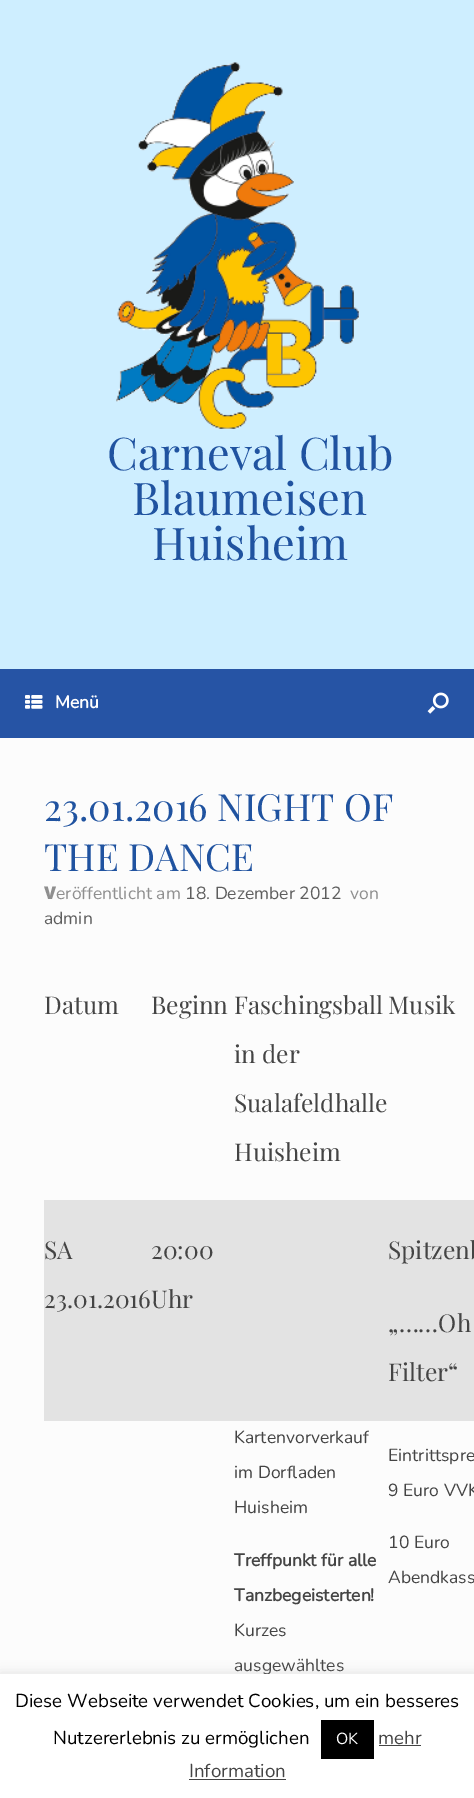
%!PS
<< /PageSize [474 1798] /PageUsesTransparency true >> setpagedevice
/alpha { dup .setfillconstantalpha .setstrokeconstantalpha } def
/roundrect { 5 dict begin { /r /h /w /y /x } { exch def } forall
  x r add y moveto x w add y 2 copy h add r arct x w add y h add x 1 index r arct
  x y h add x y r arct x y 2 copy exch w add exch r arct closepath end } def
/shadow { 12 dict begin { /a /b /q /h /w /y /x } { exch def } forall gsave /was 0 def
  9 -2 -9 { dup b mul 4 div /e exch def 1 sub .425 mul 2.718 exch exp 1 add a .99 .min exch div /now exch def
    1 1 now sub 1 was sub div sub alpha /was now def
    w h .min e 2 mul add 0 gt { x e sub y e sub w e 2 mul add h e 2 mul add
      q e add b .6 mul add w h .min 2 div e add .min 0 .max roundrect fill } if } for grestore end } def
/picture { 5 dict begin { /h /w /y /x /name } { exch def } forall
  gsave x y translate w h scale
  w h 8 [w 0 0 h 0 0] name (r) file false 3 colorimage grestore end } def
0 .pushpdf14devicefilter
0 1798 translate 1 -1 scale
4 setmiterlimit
0.808 0.933 1 setrgbcolor
0 0 474 1798 rectfill
(img1.rgb) 116 62 243 367 picture
/PlayfairDisplay-Regular [45 0 0 -45 0 0] selectfont
0.125 0.325 0.627 setrgbcolor
107 470 moveto (Carneval Club) show
132 515 moveto (Blaumeisen) show
152 560 moveto (Huisheim) show
0.149 0.329 0.647 setrgbcolor
0 669 474 69 rectfill
(img2.rgb) 25 695 18 14 picture
/Nunito-Bold [17.5 0 0 -17.5 0 0] selectfont
1 setgray
55 708 moveto (Menü) show
(img3.rgb) 427 692 22 22 picture
0.988 setgray
0 738 474 936 rectfill
/PlayfairDisplay-Regular [37.5 0 0 -37.5 0 0] selectfont
0.125 0.325 0.627 setrgbcolor
44 821 moveto (23.01.2016 NIGHT OF) show
44 871 moveto (THE DANCE) show
/NotoSans-Black [17.5 0 0 -17.5 0 0] selectfont
0.561 setgray
44 899 moveto (V) show
/Nunito-ExtraLight [17.5 0 0 -17.5 0 0] selectfont
56 899 moveto (eröffentlicht am) show
0.369 setgray
185 899 moveto (18. Dezember 2012) show
0.561 setgray
350 899 moveto (von) show
0.369 setgray
44 924 moveto (admin) show
/PlayfairDisplay-Regular [24.5 0 0 -24.5 0 0] selectfont
0.267 setgray
44 1014 moveto (Datum) show
151 1014 moveto (Beginn Faschingsball) show
388 1014 moveto (Musik) show
234 1063 moveto (in der) show
234 1112 moveto (Sualafeldhalle) show
234 1161 moveto (Huisheim) show
0.89 setgray
44 1200 430 221 rectfill
0.267 setgray
44 1259 moveto (SA) show
44 1308 moveto (23.01.2016Uhr) show
388 1259 moveto (Spitzenb) show
388 1332 moveto („……Oh) show
388 1381 moveto (Filter“) show
151 1259 moveto (20:00) show
/Nunito-ExtraLight [17.5 0 0 -17.5 0 0] selectfont
234 1443 moveto (Kartenvorverkauf) show
234 1478 moveto (im Dorfladen) show
234 1513 moveto (Huisheim) show
/Nunito-Bold [17.5 0 0 -17.5 0 0] selectfont
234 1566 moveto (Treffpunkt für alle) show
234 1601 moveto (Tanzbegeisterten!) show
/Nunito-ExtraLight [17.5 0 0 -17.5 0 0] selectfont
234 1636 moveto (Kurzes) show
234 1671 moveto (ausgewähltes) show
388 1461 moveto (Eintrittspre) show
388 1496 moveto (9 Euro VVK) show
388 1548 moveto (10 Euro) show
388 1583 moveto (Abendkass) show
0.675 0.671 0.671 setrgbcolor
0 1673 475 125 0 6 0.3 shadow
1 setgray
0 1674 474 124 rectfill
/Nunito-ExtraLight [18.75 0 0 -18.75 0 0] selectfont
0 setgray
15 1707 moveto (Diese Webseite verwendet Cookies, um ein besseres) show
53 1744 moveto (Nutzererlebnis zu ermöglichen) show
321 1720 53 39 rectfill
/Nunito-ExtraLight [16 0 0 -16 0 0] selectfont
1 setgray
336 1744 moveto (OK) show
/Nunito-ExtraLight [18.75 0 0 -18.75 0 0] selectfont
0.267 setgray
378 1744 moveto (mehr) show
379 1745 42 1 rectfill
189 1777 moveto (Information) show
189 1779 97 1 rectfill
.poppdf14devicefilter showpage
